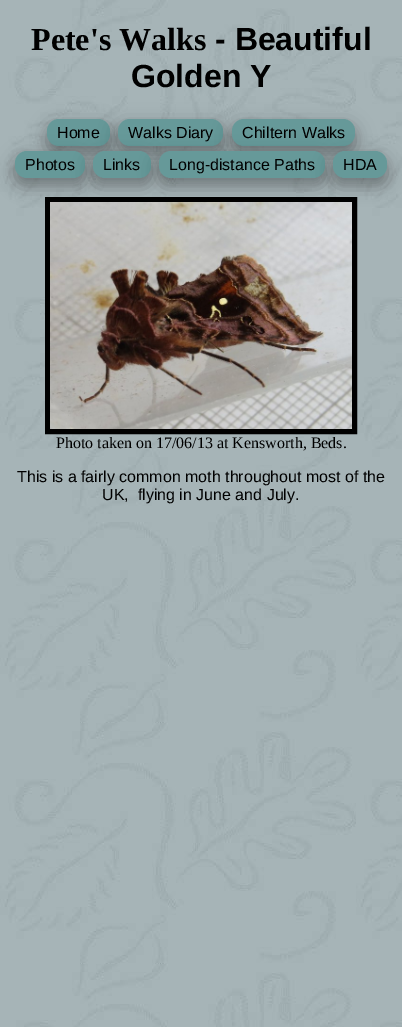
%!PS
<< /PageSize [402 1027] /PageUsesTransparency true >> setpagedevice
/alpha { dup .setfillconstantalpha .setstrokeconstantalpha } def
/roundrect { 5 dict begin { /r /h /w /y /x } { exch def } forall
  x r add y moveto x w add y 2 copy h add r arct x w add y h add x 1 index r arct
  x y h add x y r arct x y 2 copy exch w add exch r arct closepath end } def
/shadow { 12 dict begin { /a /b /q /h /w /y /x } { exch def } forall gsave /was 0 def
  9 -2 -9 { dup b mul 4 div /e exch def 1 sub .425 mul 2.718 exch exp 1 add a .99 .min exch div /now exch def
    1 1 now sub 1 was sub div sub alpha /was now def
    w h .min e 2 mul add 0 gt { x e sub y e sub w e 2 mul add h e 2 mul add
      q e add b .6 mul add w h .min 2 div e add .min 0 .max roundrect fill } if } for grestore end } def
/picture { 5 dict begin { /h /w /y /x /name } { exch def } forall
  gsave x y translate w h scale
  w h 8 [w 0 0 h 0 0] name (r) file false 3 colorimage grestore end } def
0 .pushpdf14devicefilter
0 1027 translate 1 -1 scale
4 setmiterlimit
1 setgray
0 0 402 1027 rectfill
(img1.rgb) 0 0 402 1027 picture
/LiberationSerif-Bold [32 0 0 -32 0 0] selectfont
0 setgray
31 50 moveto (Pete's Walks) show
/LiberationSans-Bold [32 0 0 -32 0 0] selectfont
215 50 moveto (- Beautiful) show
131 87 moveto (Golden Y) show
47 125 63 27 12 10 0.19 shadow
47 127 63 27 12 8 0.2 shadow
0.4 0.6 0.6 setrgbcolor
47 119 63 27 12 roundrect fill
/LiberationSans-Regular [16 0 0 -16 0 0] selectfont
0 setgray
57 138 moveto (Home) show
118 125 105 27 12 10 0.19 shadow
118 127 105 27 12 8 0.2 shadow
0.4 0.6 0.6 setrgbcolor
118 119 105 27 12 roundrect fill
0 setgray
128 138 moveto (Walks Diary) show
232 125 123 27 12 10 0.19 shadow
232 127 123 27 12 8 0.2 shadow
0.4 0.6 0.6 setrgbcolor
232 119 123 27 12 roundrect fill
0 setgray
242 138 moveto (Chiltern Walks) show
15 157 70 27 12 10 0.19 shadow
15 159 70 27 12 8 0.2 shadow
0.4 0.6 0.6 setrgbcolor
15 151 70 27 12 roundrect fill
0 setgray
25 170 moveto (Photos) show
93 157 58 27 12 10 0.19 shadow
93 159 58 27 12 8 0.2 shadow
0.4 0.6 0.6 setrgbcolor
93 151 58 27 12 roundrect fill
0 setgray
103 170 moveto (Links) show
159 157 166 27 12 10 0.19 shadow
159 159 166 27 12 8 0.2 shadow
0.4 0.6 0.6 setrgbcolor
159 151 166 27 12 roundrect fill
0 setgray
169 170 moveto (Long-distance Paths) show
333 157 54 27 12 10 0.19 shadow
333 159 54 27 12 8 0.2 shadow
0.4 0.6 0.6 setrgbcolor
333 151 54 27 12 roundrect fill
0 setgray
343 170 moveto (HDA) show
5 setlinewidth
47.5 199.5 307 232 rectstroke
(img2.rgb) 50 202 302 227 picture
/LiberationSerif-Regular [16 0 0 -16 0 0] selectfont
56 448 moveto (Photo taken on 17/06/13 at Kensworth, Beds.) show
/LiberationSans-Regular [16 0 0 -16 0 0] selectfont
17 482 moveto (This is a fairly common moth throughout most of the) show
102 500 moveto (UK,  flying in June and July.) show
.poppdf14devicefilter showpage
